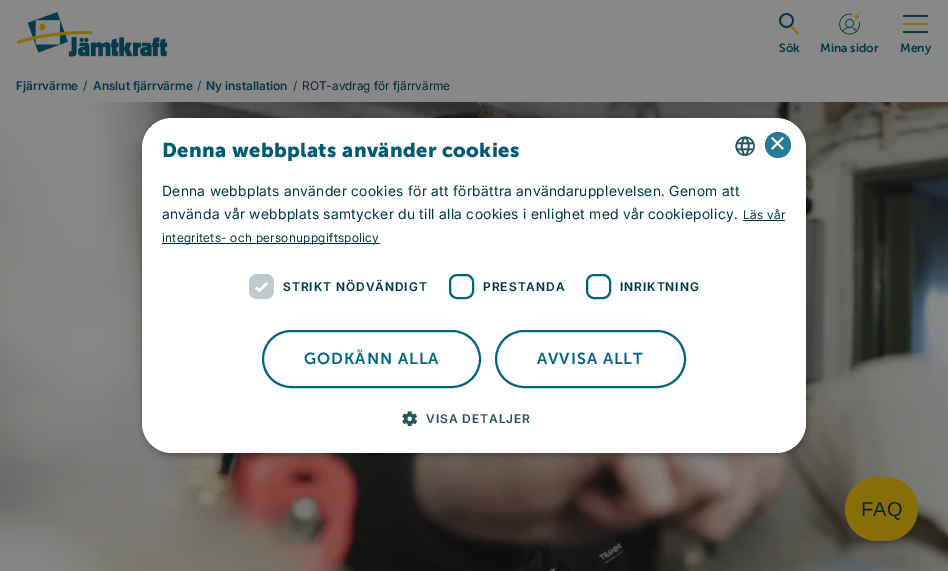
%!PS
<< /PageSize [948 571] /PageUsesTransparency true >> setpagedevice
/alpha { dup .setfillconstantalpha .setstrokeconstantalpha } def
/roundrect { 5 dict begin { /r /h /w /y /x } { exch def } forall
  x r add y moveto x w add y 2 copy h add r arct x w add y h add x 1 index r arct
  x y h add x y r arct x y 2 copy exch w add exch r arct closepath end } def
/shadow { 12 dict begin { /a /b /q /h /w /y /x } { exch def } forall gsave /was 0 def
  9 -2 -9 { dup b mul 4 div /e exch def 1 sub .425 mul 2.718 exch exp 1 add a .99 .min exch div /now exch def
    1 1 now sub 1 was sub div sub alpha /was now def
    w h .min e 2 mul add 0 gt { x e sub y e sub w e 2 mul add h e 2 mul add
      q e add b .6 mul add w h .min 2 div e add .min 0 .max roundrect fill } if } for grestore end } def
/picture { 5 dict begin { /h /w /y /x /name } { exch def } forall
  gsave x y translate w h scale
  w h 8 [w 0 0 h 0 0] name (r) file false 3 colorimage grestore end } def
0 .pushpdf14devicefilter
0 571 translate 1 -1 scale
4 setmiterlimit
0.533 setgray
0 0 948 571 rectfill
(img1.rgb) 16 12 152 45 picture
0.533 0.431 0.035 setrgbcolor
1.8 setlinewidth
1 setlinecap
newpath 791 26 moveto 798 33.5 lineto stroke
0.035 0.212 0.263 setrgbcolor
0 setlinecap
newpath 786.5 20.5 6.5 0 360 arc closepath stroke
/MuseoSans-SemiBold [12 0 0 -12 0 0] selectfont
779 52 moveto (Sök) show
(img2.rgb) 839 12 21 23 picture
820 52 moveto (Mina sidor) show
903 15 25 2 1 roundrect fill
0.533 0.431 0.035 setrgbcolor
903 23 25 2 1 roundrect fill
0.035 0.212 0.263 setrgbcolor
903 31 25 2 1 roundrect fill
900 52 moveto (Meny) show
0.506 0.514 0.51 setrgbcolor
0 69 948 1 rectfill
/Inter-SemiBold [12 0 0 -12 0 0] selectfont
0.035 0.212 0.263 setrgbcolor
16 90 moveto (Fjärrvärme) show
/Inter-Regular [12 0 0 -12 0 0] selectfont
83 90 moveto (/) show
/Inter-SemiBold [12 0 0 -12 0 0] selectfont
93 90 moveto (Anslut fjärrvärme) show
/Inter-Regular [12 0 0 -12 0 0] selectfont
197 90 moveto (/) show
/Inter-SemiBold [12 0 0 -12 0 0] selectfont
206 90 moveto (Ny installation) show
/Inter-Regular [12 0 0 -12 0 0] selectfont
293 90 moveto (/) show
0.035 0.141 0.165 setrgbcolor
302 90 moveto (ROT-avdrag för fjärrvärme) show
(img3.rgb) 0 102 948 469 picture
0 setgray
143 120 664 335 30 4 0.35 shadow
1 setgray
142 118 664 335 30 roundrect fill
/MuseoSans-Bold [20 0 0 -20 0 0] selectfont
0 0.357 0.459 setrgbcolor
162 157 moveto 0.4 0 (Denna webbplats använder cookies) ashow
(img4.rgb) 735 136 20 20 picture
0.149 0.486 0.588 setrgbcolor
newpath 778 145 13 0 360 arc closepath fill
/LiberationSans-Regular [29 0 0 -29 0 0] selectfont
1 setgray
769 153 moveto (×) show
/Inter-Regular [14 0 0 -14 0 0] selectfont
0 0.216 0.259 setrgbcolor
162 196 moveto 0.3 0 (Denna webbplats använder cookies för att förbättra användarupplevelsen. Genom att) ashow
162 219 moveto 0.3 0 (använda vår webbplats samtycker du till alla cookies i enlighet med vår cookiepolicy.) ashow
/Inter-Regular [12 0 0 -12 0 0] selectfont
743 219 moveto 0.3 0 (Läs vår) ashow
743 220 42 1 rectfill
162 243 218 1 rectfill
162 242 moveto 0.3 0 (integritets- och personuppgiftspolicy) ashow
0.741 0.796 0.808 setrgbcolor
249 274 25 25 8 roundrect fill
1 setgray
2.6 setlinewidth
newpath 256 287.5 moveto 259.5 290.5 lineto 267 283 lineto stroke
/Inter-SemiBold [12 0 0 -12 0 0] selectfont
0 0.216 0.259 setrgbcolor
283 291 moveto 1 0 (STRIKT NÖDVÄNDIGT) ashow
0 0.396 0.514 setrgbcolor
2 setlinewidth
450 275 23 23 7 roundrect stroke
0 0.216 0.259 setrgbcolor
483 291 moveto 1 0 (PRESTANDA) ashow
0 0.396 0.514 setrgbcolor
587 275 23 23 7 roundrect stroke
0 0.216 0.259 setrgbcolor
620 291 moveto 1 0 (INRIKTNING) ashow
0 0.396 0.514 setrgbcolor
263 331 217 56 28 roundrect stroke
/MuseoSans-SemiBold [16 0 0 -16 0 0] selectfont
304 364 moveto 1 0 (GODKÄNN ALLA) ashow
496 331 189 56 28 roundrect stroke
537 364 moveto 1 0 (AVVISA ALLT) ashow
(img5.rgb) 402 411 15 15 picture
/Inter-SemiBold [12 0 0 -12 0 0] selectfont
0.149 0.333 0.369 setrgbcolor
426 423 moveto 1 0 (VISA DETALJER) ashow
0.533 0.431 0.035 setrgbcolor
845 477 73 64 32 roundrect fill
/LiberationSans-Regular [20 0 0 -20 0 0] selectfont
0.035 0.141 0.165 setrgbcolor
861 516 moveto (FAQ) show
.poppdf14devicefilter showpage
